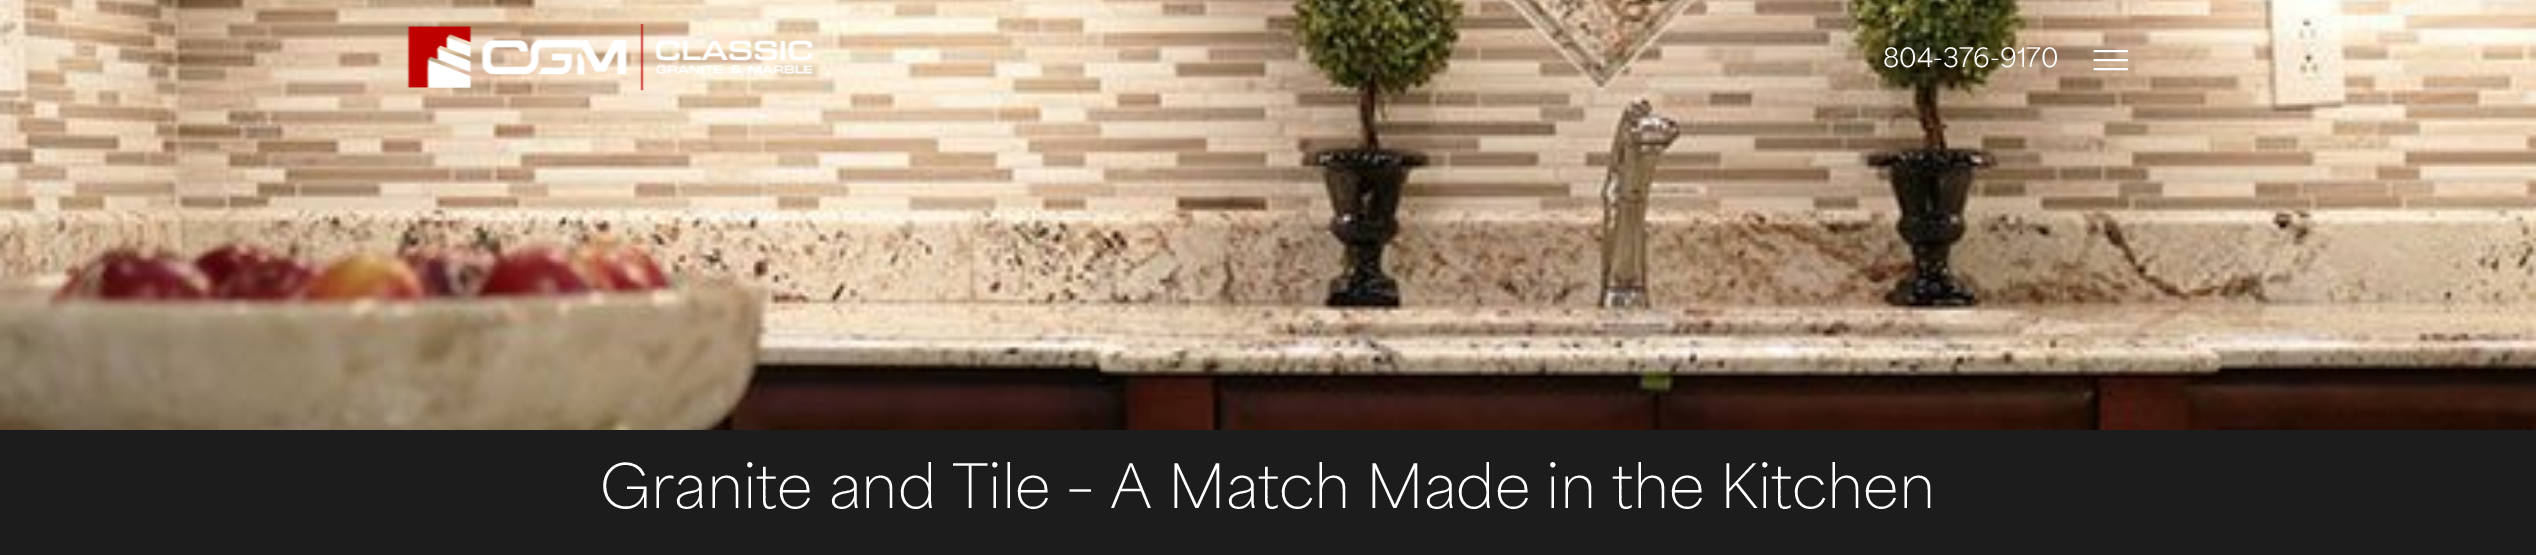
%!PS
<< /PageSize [2536 555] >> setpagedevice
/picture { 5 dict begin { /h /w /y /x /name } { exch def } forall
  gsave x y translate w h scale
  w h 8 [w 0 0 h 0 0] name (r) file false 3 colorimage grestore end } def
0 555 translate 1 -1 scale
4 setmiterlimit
0.11 setgray
0 0 2536 555 rectfill
(img2.rgb) 0 0 2536 430 picture
(img1.rgb) 407 24 406 67 picture
/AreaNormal-Regular [25 0 0 -25 0 0] selectfont
1 setgray
1883 67 moveto (804-376-9170) show
1.9 setlinewidth
1 setlinecap
newpath 2094.5 51 moveto 2127 51 lineto 2094.5 60 moveto 2127 60 lineto 2094.5 69 moveto 2127 69 lineto stroke
/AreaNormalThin-Thin [57.5 0 0 -57.5 0 0] selectfont
600 508 moveto (Granite and Tile – A Match Made in the Kitchen) show
showpage
